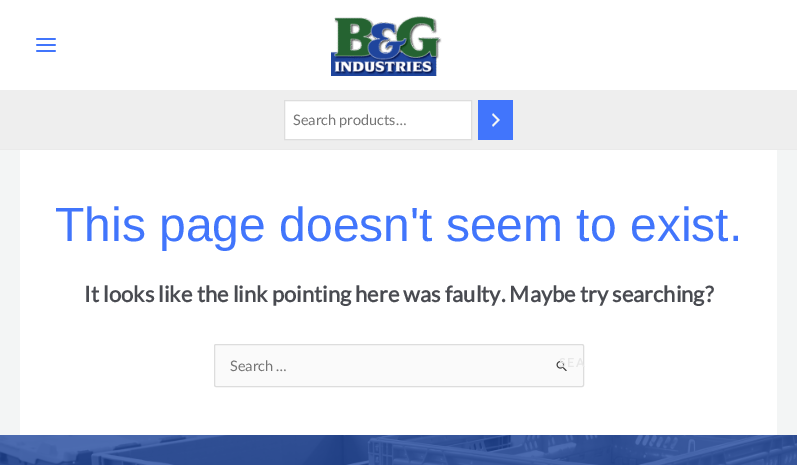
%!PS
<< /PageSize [797 465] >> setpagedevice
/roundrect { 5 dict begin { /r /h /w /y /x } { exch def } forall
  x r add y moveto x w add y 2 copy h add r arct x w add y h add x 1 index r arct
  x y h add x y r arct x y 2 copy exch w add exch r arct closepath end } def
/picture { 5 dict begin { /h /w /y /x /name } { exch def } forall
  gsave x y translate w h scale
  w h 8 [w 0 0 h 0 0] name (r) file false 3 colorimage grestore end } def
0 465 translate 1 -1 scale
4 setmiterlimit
0.953 0.961 0.961 setrgbcolor
0 0 797 465 rectfill
1 setgray
0 0 797 90 rectfill
(img1.rgb) 36 38 20 14 picture
(img2.rgb) 331 16 111 60 picture
0.933 setgray
0 90 797 59 rectfill
0.918 setgray
0 149 797 1 rectfill
1 setgray
newpath 284.5 100.5 moveto 471.5 100.5 lineto 471.5 139.5 lineto 284.5 139.5 lineto closepath gsave fill grestore
0.867 setgray
stroke
/Lato-Regular [14.5 0 0 -14.5 0 0] selectfont
0.459 setgray
293 125 moveto (Search products…) show
0.255 0.459 0.988 setrgbcolor
478 100 35 40 rectfill
(img3.rgb) 492 113 8 14 picture
1 setgray
20 150 757 285 rectfill
/LiberationSans-Regular [48 0 0 -48 0 0] selectfont
0.255 0.459 0.988 setrgbcolor
55 241 moveto (This page doesn't seem to exist.) show
/Lato-Bold [21.9 0 0 -21.9 0 0] selectfont
0.286 0.294 0.318 setrgbcolor
84 302 moveto (It looks like the link pointing here was faulty. Maybe try searching?) show
0.98 setgray
214.5 344.5 369 42 1.5 roundrect gsave fill grestore
0.867 setgray
stroke
/Lato-Regular [14.5 0 0 -14.5 0 0] selectfont
0.459 setgray
230 371 moveto (Search …) show
(img4.rgb) 556 361 11 10 picture
/Lato-Bold [12 0 0 -12 0 0] selectfont
0.91 setgray
559 367 moveto 2 0 (SEA) ashow
(img5.rgb) 0 435 797 30 picture
showpage
